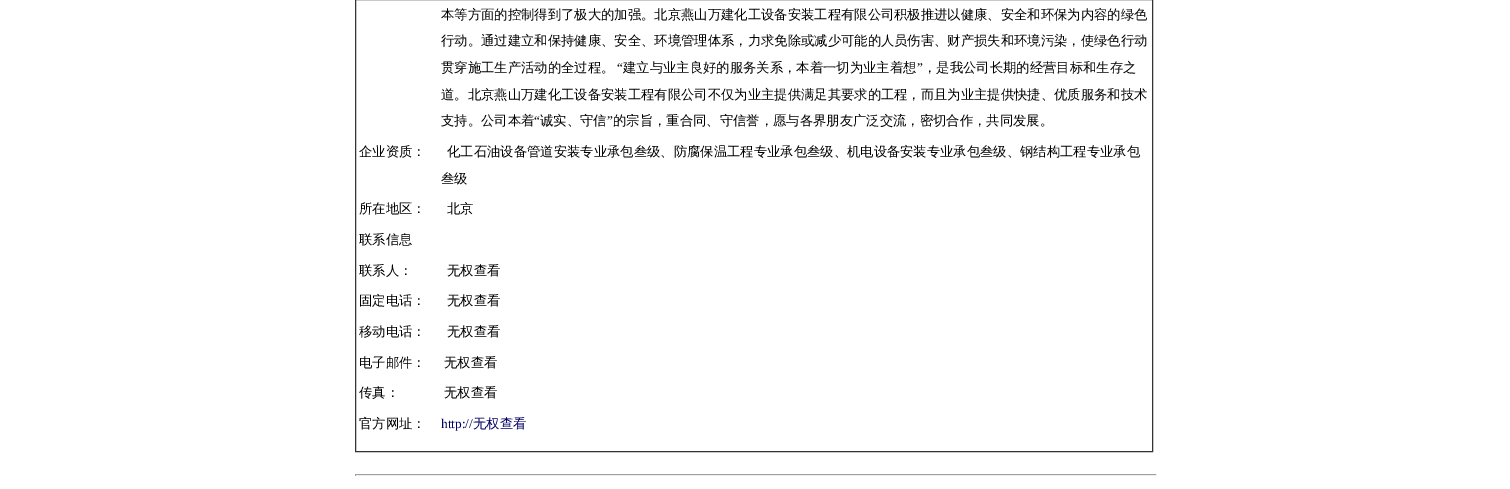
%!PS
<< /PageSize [1510 489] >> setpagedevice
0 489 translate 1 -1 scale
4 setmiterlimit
1 setgray
0 0 1510 489 rectfill
0.2 setgray
355.5 -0.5 797 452 rectstroke
/WenQuanYiZenHei-Medium [13.33 0 0 -13.33 0 0] selectfont
0 setgray
441 19 moveto (本等方面的控制得到了极大的加强。北京燕山万建化工设备安装工程有限公司积极推进以健康、安全和环保为内容的绿色) show
441 45 moveto (行动。通过建立和保持健康、安全、环境管理体系，力求免除或减少可能的人员伤害、财产损失和环境污染，使绿色行动) show
441 72 moveto (贯穿施工生产活动的全过程。) show
/LiberationSerif-Regular [13.33 0 0 -13.33 0 0] selectfont
617 72 moveto (“) show
/WenQuanYiZenHei-Medium [13.33 0 0 -13.33 0 0] selectfont
623 72 moveto (建立与业主良好的服务关系，本着一切为业主着想) show
/LiberationSerif-Regular [13.33 0 0 -13.33 0 0] selectfont
917 72 moveto (”) show
/WenQuanYiZenHei-Medium [13.33 0 0 -13.33 0 0] selectfont
923 72 moveto (，是我公司长期的经营目标和生存之) show
441 99 moveto (道。北京燕山万建化工设备安装工程有限公司不仅为业主提供满足其要求的工程，而且为业主提供快捷、优质服务和技术) show
441 125 moveto (支持。公司本着) show
/LiberationSerif-Regular [13.33 0 0 -13.33 0 0] selectfont
534 125 moveto (“) show
/WenQuanYiZenHei-Medium [13.33 0 0 -13.33 0 0] selectfont
540 125 moveto (诚实、守信) show
/LiberationSerif-Regular [13.33 0 0 -13.33 0 0] selectfont
607 125 moveto (”) show
/WenQuanYiZenHei-Medium [13.33 0 0 -13.33 0 0] selectfont
613 125 moveto (的宗旨，重合同、守信誉，愿与各界朋友广泛交流，密切合作，共同发展。) show
359 156 moveto (企业资质：) show
447 156 moveto (化工石油设备管道安装专业承包叁级、防腐保温工程专业承包叁级、机电设备安装专业承包叁级、钢结构工程专业承包) show
441 183 moveto (叁级) show
359 213 moveto (所在地区：) show
447 213 moveto (北京) show
359 244 moveto (联系信息) show
359 275 moveto (联系人：) show
447 275 moveto (无权查看) show
359 305 moveto (固定电话：) show
447 305 moveto (无权查看) show
359 336 moveto (移动电话：) show
447 336 moveto (无权查看) show
359 367 moveto (电子邮件：) show
444 367 moveto (无权查看) show
359 397 moveto (传真：) show
444 397 moveto (无权查看) show
359 428 moveto (官方网址：) show
/LiberationSerif-Regular [13.33 0 0 -13.33 0 0] selectfont
0 0 0.4 setrgbcolor
441 428 moveto (http://) show
/WenQuanYiZenHei-Medium [13.33 0 0 -13.33 0 0] selectfont
473 428 moveto (无权查看) show
0.624 setgray
355 474 802 1 rectfill
0.933 setgray
1156 474 1 2 rectfill
355 475 802 1 rectfill
0.624 setgray
355 474 1 2 rectfill
showpage
